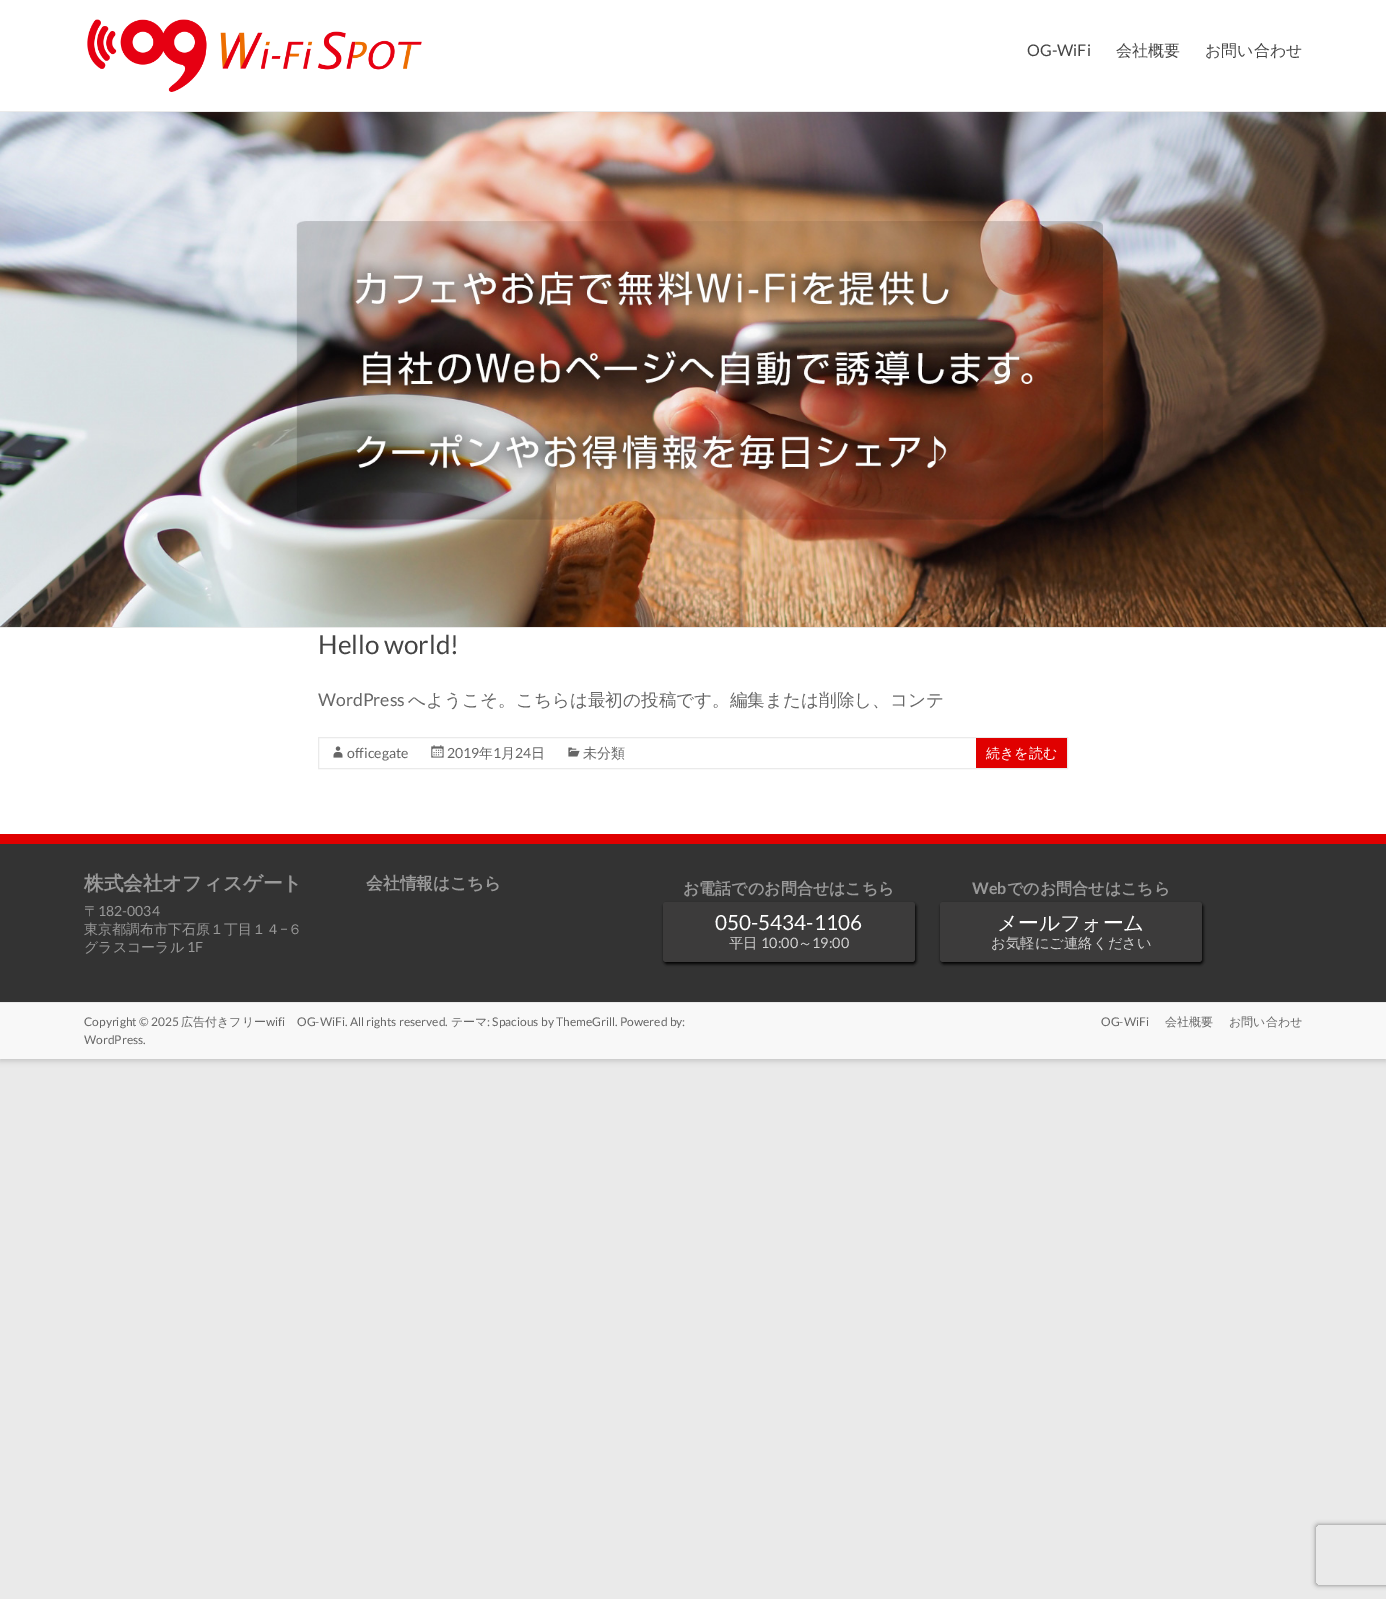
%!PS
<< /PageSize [1386 1599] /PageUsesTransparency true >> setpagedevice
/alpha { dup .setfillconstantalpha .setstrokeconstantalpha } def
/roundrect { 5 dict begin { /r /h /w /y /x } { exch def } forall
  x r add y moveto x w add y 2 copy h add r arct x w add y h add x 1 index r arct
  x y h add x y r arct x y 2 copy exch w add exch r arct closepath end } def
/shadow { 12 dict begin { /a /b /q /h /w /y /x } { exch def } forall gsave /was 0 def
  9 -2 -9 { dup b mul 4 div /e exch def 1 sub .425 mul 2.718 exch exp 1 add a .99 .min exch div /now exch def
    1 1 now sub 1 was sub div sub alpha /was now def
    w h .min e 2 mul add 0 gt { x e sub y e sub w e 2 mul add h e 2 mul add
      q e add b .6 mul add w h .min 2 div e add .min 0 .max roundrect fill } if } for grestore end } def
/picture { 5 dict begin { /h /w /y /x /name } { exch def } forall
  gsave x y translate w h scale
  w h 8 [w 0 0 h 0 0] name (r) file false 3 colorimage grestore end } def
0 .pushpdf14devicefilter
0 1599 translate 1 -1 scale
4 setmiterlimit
0.918 setgray
0 0 1386 1599 rectfill
0.392 setgray
0 2 1386 1059 0 3 0.3 shadow
1 setgray
0 0 1386 834 rectfill
0.918 setgray
0 111 1386 1 rectfill
(img1.rgb) 87 19 335 73 picture
/Lato-Regular [16 0 0 -16 0 0] selectfont
0.267 setgray
1027 56 moveto (OG-WiFi) show
/WenQuanYiZenHei-Medium [16 0 0 -16 0 0] selectfont
1116 56 moveto (会社概要) show
1205 56 moveto (お問い合わせ) show
(img2.rgb) 0 112 1386 515 picture
0.918 setgray
0 627 1386 1 rectfill
/Lato-Regular [26 0 0 -26 0 0] selectfont
0.267 setgray
318 654 moveto (Hello world!) show
/Lato-Regular [17.6 0 0 -17.6 0 0] selectfont
0.4 setgray
318 706 moveto (WordPress) show
/WenQuanYiZenHei-Medium [17.6 0 0 -17.6 0 0] selectfont
408 706 moveto (へようこそ。こちらは最初の投稿です。編集または削除し、コンテ) show
0.918 setgray
318.5 737.5 749 31 rectstroke
(img3.rgb) 333 746 10 12 picture
/Lato-Regular [14 0 0 -14 0 0] selectfont
0.4 setgray
347 758 moveto (officegate) show
(img4.rgb) 431 745 13 13 picture
447 758 moveto (2019) show
/WenQuanYiZenHei-Medium [14 0 0 -14 0 0] selectfont
479 758 moveto (年) show
/Lato-Regular [14 0 0 -14 0 0] selectfont
493 758 moveto (1) show
/WenQuanYiZenHei-Medium [14 0 0 -14 0 0] selectfont
501 758 moveto (月) show
/Lato-Regular [14 0 0 -14 0 0] selectfont
515 758 moveto (24) show
/WenQuanYiZenHei-Medium [14 0 0 -14 0 0] selectfont
531 758 moveto (日) show
(img5.rgb) 568 747 12 10 picture
583 758 moveto (未分類) show
0.878 0 0 setrgbcolor
976 738 91 30 rectfill
1 setgray
986 758 moveto (続きを読む) show
0.2 setgray
0 844 1386 158 rectfill
0.878 0 0 setrgbcolor
0 834 1386 10 rectfill
/WenQuanYiZenHei-Bold [19.6 0 0 -19.6 0 0] selectfont
0.6 setgray
84 890 moveto (株式会社オフィスゲート) show
/WenQuanYiZenHei-Medium [14 0 0 -14 0 0] selectfont
84 916 moveto (〒) show
/Lato-Regular [14 0 0 -14 0 0] selectfont
98 916 moveto (182-0034) show
/WenQuanYiZenHei-Medium [14 0 0 -14 0 0] selectfont
84 934 moveto (東京都調布市下石原１丁目１４) show
/Lato-Regular [14 0 0 -14 0 0] selectfont
280 934 moveto (−) show
/WenQuanYiZenHei-Medium [14 0 0 -14 0 0] selectfont
288 934 moveto (６) show
84 952 moveto (グラスコーラル) show
/Lato-Regular [14 0 0 -14 0 0] selectfont
187 952 moveto (1F) show
/WenQuanYiZenHei-Bold [16.75 0 0 -16.75 0 0] selectfont
366 889 moveto (会社情報はこちら) show
/WenQuanYiZenHei-Bold [16 0 0 -16 0 0] selectfont
683 894 moveto (お電話でのお問合せはこちら) show
0 setgray
664 904 252 60 3 1.5 1 shadow
0.235 0.231 0.231 setrgbcolor
663 902 252 60 3 roundrect fill
/Lato-Regular [20.75 0 0 -20.75 0 0] selectfont
1 setgray
715 930 moveto (050-5434-1106) show
/WenQuanYiZenHei-Medium [14.4 0 0 -14.4 0 0] selectfont
0.827 setgray
729 948 moveto (平日) show
/Lato-Regular [14.4 0 0 -14.4 0 0] selectfont
761 948 moveto (10:00) show
/WenQuanYiZenHei-Medium [14.4 0 0 -14.4 0 0] selectfont
798 948 moveto (～) show
/Lato-Regular [14.4 0 0 -14.4 0 0] selectfont
812 948 moveto (19:00) show
/Lato-Bold [16 0 0 -16 0 0] selectfont
0.6 setgray
972 894 moveto (Web) show
/WenQuanYiZenHei-Bold [16 0 0 -16 0 0] selectfont
1007 894 moveto (でのお問合せはこちら) show
0 setgray
941 904 262 60 3 1.5 1 shadow
0.235 0.231 0.231 setrgbcolor
940 902 262 60 3 roundrect fill
/WenQuanYiZenHei-Medium [20.75 0 0 -20.75 0 0] selectfont
1 setgray
997 930 moveto (メールフォーム) show
/WenQuanYiZenHei-Medium [14.4 0 0 -14.4 0 0] selectfont
0.827 setgray
991 948 moveto (お気軽にご連絡ください) show
0.973 setgray
0 1003 1386 56 rectfill
0.918 setgray
0 1002 1386 1 rectfill
/Lato-Regular [12 0 0 -12 0 0] selectfont
0.4 setgray
84 1026 moveto (Copyright © 2025) show
/WenQuanYiZenHei-Medium [12 0 0 -12 0 0] selectfont
181 1026 moveto (広告付きフリー) show
/Lato-Regular [12 0 0 -12 0 0] selectfont
266 1026 moveto (wifi) show
297 1026 moveto (OG-WiFi. All rights reserved.) show
/WenQuanYiZenHei-Medium [12 0 0 -12 0 0] selectfont
451 1026 moveto (テーマ) show
/Lato-Regular [12 0 0 -12 0 0] selectfont
487 1026 moveto (: Spacious by ThemeGrill. Powered by:) show
84 1044 moveto (WordPress.) show
1101 1026 moveto (OG-WiFi) show
/WenQuanYiZenHei-Medium [12 0 0 -12 0 0] selectfont
1165 1026 moveto (会社概要) show
1229 1026 moveto (お問い合わせ) show
gsave
newpath 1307 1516 moveto 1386 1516 lineto 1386 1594 lineto 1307 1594 lineto closepath 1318 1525 moveto 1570 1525 lineto 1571 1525 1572 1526 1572 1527 curveto 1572 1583 lineto 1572 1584 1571 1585 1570 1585 curveto 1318 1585 lineto 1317 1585 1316 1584 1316 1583 curveto 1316 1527 lineto 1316 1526 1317 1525 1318 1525 curveto closepath eoclip newpath
0.502 setgray
1316 1525 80 60 2 2.5 1 shadow
grestore
.poppdf14devicefilter showpage
